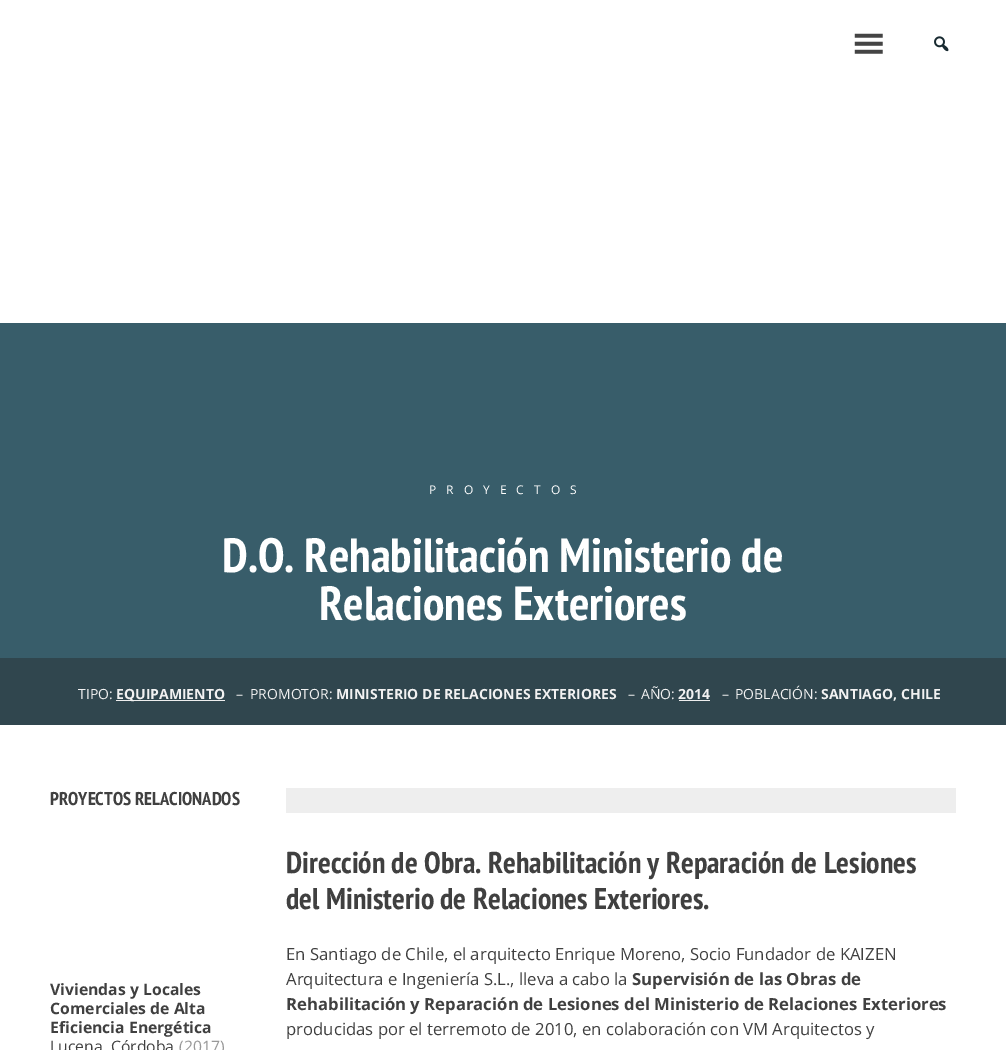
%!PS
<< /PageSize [1006 1050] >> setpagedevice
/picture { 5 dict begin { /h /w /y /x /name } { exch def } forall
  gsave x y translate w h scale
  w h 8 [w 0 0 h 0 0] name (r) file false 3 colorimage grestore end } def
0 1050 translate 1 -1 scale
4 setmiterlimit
1 setgray
0 0 1006 1050 rectfill
0.22 0.365 0.416 setrgbcolor
0 323 1006 335 rectfill
(img1.rgb) 854 33 29 21 picture
(img2.rgb) 934 36 15 16 picture
/OpenSans-Regular [12 0 0 -12 0 0] selectfont
1 setgray
429 494 moveto 10 0 (PROYECTOS) ashow
/PTSansNarrow-Bold [48 0 0 -48 0 0] selectfont
222 572 moveto (D.O. Rehabilitación Ministerio de) show
319 620 moveto (Relaciones Exteriores) show
0.188 0.275 0.306 setrgbcolor
0 658 1006 67 rectfill
/OpenSans-Regular [14 0 0 -14 0 0] selectfont
0.945 setgray
78 699 moveto (TIPO:) show
0.933 setgray
116 700 109 1 rectfill
/OpenSans-Bold [14 0 0 -14 0 0] selectfont
0.945 setgray
116 699 moveto (EQUIPAMIENTO) show
/OpenSans-Regular [14 0 0 -14 0 0] selectfont
236 699 moveto (–) show
250 699 moveto (PROMOTOR:) show
/OpenSans-Bold [14 0 0 -14 0 0] selectfont
336 699 moveto (MINISTERIO DE RELACIONES EXTERIORES) show
/OpenSans-Regular [14 0 0 -14 0 0] selectfont
628 699 moveto (–) show
641 699 moveto (AÑO:) show
/OpenSans-Bold [14 0 0 -14 0 0] selectfont
678 699 moveto (2014) show
0.933 setgray
679 700 31 1 rectfill
/OpenSans-Regular [14 0 0 -14 0 0] selectfont
0.945 setgray
722 699 moveto (–) show
735 699 moveto (POBLACIÓN:) show
/OpenSans-Bold [14 0 0 -14 0 0] selectfont
821 699 moveto (SANTIAGO, CHILE) show
/PTSansNarrow-Bold [18.5 0 0 -18.5 0 0] selectfont
0.251 setgray
50 805 moveto (PROYECTOS RELACIONADOS) show
/OpenSans-Bold [15.75 0 0 -15.75 0 0] selectfont
50 995 moveto (Viviendas y Locales) show
50 1014 moveto (Comerciales de Alta) show
50 1033 moveto (Eficiencia Energética) show
/OpenSans-Regular [15.75 0 0 -15.75 0 0] selectfont
50 1052 moveto (Lucena, Córdoba) show
0.6 setgray
179 1052 moveto (\(2017\)) show
0.933 setgray
286 788 670 25 rectfill
/PTSansNarrow-Bold [30.1 0 0 -30.1 0 0] selectfont
0.251 setgray
286 873 moveto (Dirección de Obra. Rehabilitación y Reparación de Lesiones) show
286 909 moveto (del Ministerio de Relaciones Exteriores.) show
/OpenSans-Regular [16.7 0 0 -16.7 0 0] selectfont
286 960 moveto (En Santiago de Chile, el arquitecto Enrique Moreno, Socio Fundador de KAIZEN) show
286 985 moveto (Arquitectura e Ingeniería S.L., lleva a cabo la) show
/OpenSans-Bold [16.7 0 0 -16.7 0 0] selectfont
632 985 moveto (Supervisión de las Obras de) show
286 1010 moveto (Rehabilitación y Reparación de Lesiones del Ministerio de Relaciones Exteriores) show
/OpenSans-Regular [16.7 0 0 -16.7 0 0] selectfont
286 1035 moveto (producidas por el terremoto de 2010, en colaboración con VM Arquitectos y) show
showpage
